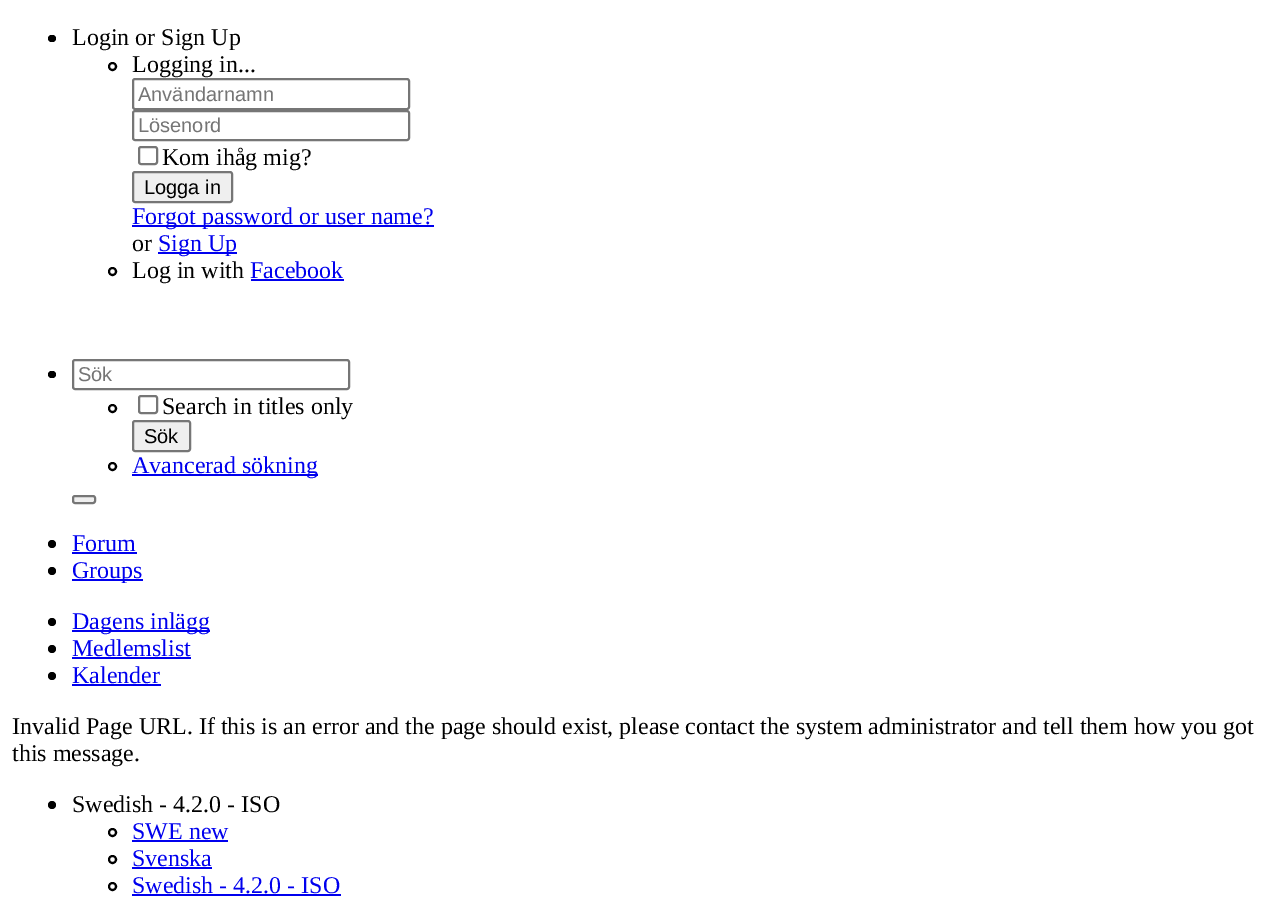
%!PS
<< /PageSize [1267 902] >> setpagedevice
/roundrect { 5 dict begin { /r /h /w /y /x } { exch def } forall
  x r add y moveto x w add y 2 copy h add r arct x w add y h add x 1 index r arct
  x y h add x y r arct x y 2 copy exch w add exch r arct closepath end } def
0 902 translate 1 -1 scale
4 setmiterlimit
1 setgray
0 0 1267 902 rectfill
0 setgray
48 35 8 7 3.5 roundrect fill
/LiberationSerif-Regular [24 0 0 -24 0 0] selectfont
72 45 moveto (Login or Sign Up) show
2 setlinewidth
newpath 112.5 66.5 3.5 0 360 arc closepath stroke
132 72 moveto (Logging in...) show
0.463 setgray
133 79 276 30 2 roundrect stroke
/LiberationSans-Regular [20 0 0 -20 0 0] selectfont
0.459 setgray
138 101 moveto (Användarnamn) show
0.463 setgray
133 111 276 29 2 roundrect stroke
0.459 setgray
138 132 moveto (Lösenord) show
0.463 setgray
139 147 18 17 2 roundrect stroke
/LiberationSerif-Regular [24 0 0 -24 0 0] selectfont
0 setgray
162 165 moveto (Kom ihåg mig?) show
0.937 setgray
133 172 99 30 2 roundrect gsave fill grestore
0.463 setgray
stroke
/LiberationSans-Regular [20 0 0 -20 0 0] selectfont
0 setgray
144 194 moveto (Logga in) show
0 0 0.933 setrgbcolor
132 225 302 2 rectfill
/LiberationSerif-Regular [24 0 0 -24 0 0] selectfont
132 224 moveto (Forgot password or user name?) show
0 setgray
132 251 moveto (or) show
0 0 0.933 setrgbcolor
158 252 79 2 rectfill
158 251 moveto (Sign Up) show
0 setgray
newpath 112.5 271.5 3.5 0 360 arc closepath stroke
132 278 moveto (Log in with) show
0 0 0.933 setrgbcolor
250 278 moveto (Facebook) show
251 279 93 2 rectfill
0 setgray
48 371 8 7 3.5 roundrect fill
0.463 setgray
73 360 276 29 2 roundrect stroke
/LiberationSans-Regular [20 0 0 -20 0 0] selectfont
0.459 setgray
78 381 moveto (Sök) show
0 setgray
newpath 112.5 408.5 3.5 0 360 arc closepath stroke
0.463 setgray
139 396 18 17 2 roundrect stroke
/LiberationSerif-Regular [24 0 0 -24 0 0] selectfont
0 setgray
162 414 moveto (Search in titles only) show
0.937 setgray
133 421 57 30 2 roundrect gsave fill grestore
0.463 setgray
stroke
/LiberationSans-Regular [20 0 0 -20 0 0] selectfont
0 setgray
144 443 moveto (Sök) show
newpath 112.5 466.5 3.5 0 360 arc closepath stroke
0 0 0.933 setrgbcolor
132 474 186 2 rectfill
/LiberationSerif-Regular [24 0 0 -24 0 0] selectfont
132 473 moveto (Avancerad sökning) show
0.937 setgray
73 496 22 7 2 roundrect gsave fill grestore
0.463 setgray
stroke
0 setgray
newpath 52 544 4 0 360 arc closepath fill
0 0 0.933 setrgbcolor
72 551 moveto (Forum) show
72 552 65 2 rectfill
0 setgray
newpath 52 571 4 0 360 arc closepath fill
0 0 0.933 setrgbcolor
72 579 71 2 rectfill
72 578 moveto (Groups) show
0 setgray
newpath 52 622 4 0 360 arc closepath fill
0 0 0.933 setrgbcolor
72 630 138 2 rectfill
72 629 moveto (Dagens inlägg) show
0 setgray
newpath 52 649 4 0 360 arc closepath fill
0 0 0.933 setrgbcolor
72 656 moveto (Medlemslist) show
72 657 119 2 rectfill
0 setgray
newpath 52 676 4 0 360 arc closepath fill
0 0 0.933 setrgbcolor
72 683 moveto (Kalender) show
72 684 89 2 rectfill
0 setgray
12 734 moveto (Invalid Page URL. If this is an error and the page should exist, please contact the system administrator and tell them how you got) show
12 761 moveto (this message.) show
newpath 52 805 4 0 360 arc closepath fill
72 812 moveto (Swedish - 4.2.0 - ISO) show
newpath 112.5 832.5 3.5 0 360 arc closepath stroke
0 0 0.933 setrgbcolor
132 839 moveto (SWE new) show
132 840 96 2 rectfill
0 setgray
newpath 112.5 859.5 3.5 0 360 arc closepath stroke
0 0 0.933 setrgbcolor
132 866 moveto (Svenska) show
132 867 80 2 rectfill
0 setgray
newpath 112.5 886.5 3.5 0 360 arc closepath stroke
0 0 0.933 setrgbcolor
132 893 moveto (Swedish - 4.2.0 - ISO) show
132 894 209 2 rectfill
showpage
